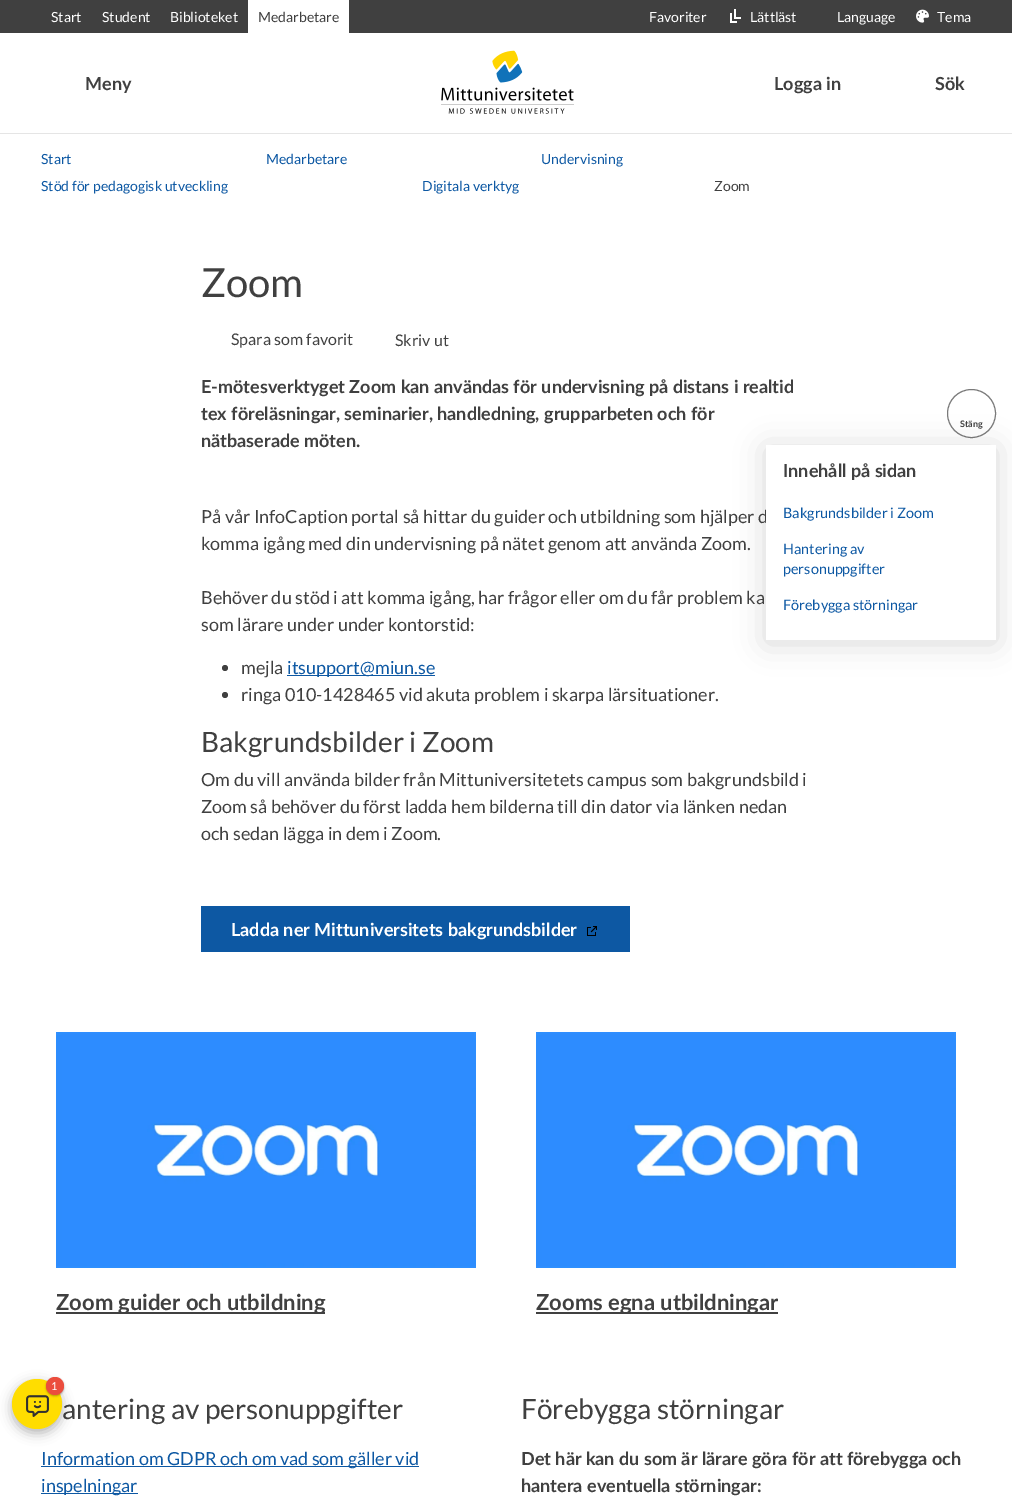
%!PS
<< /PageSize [1012 1504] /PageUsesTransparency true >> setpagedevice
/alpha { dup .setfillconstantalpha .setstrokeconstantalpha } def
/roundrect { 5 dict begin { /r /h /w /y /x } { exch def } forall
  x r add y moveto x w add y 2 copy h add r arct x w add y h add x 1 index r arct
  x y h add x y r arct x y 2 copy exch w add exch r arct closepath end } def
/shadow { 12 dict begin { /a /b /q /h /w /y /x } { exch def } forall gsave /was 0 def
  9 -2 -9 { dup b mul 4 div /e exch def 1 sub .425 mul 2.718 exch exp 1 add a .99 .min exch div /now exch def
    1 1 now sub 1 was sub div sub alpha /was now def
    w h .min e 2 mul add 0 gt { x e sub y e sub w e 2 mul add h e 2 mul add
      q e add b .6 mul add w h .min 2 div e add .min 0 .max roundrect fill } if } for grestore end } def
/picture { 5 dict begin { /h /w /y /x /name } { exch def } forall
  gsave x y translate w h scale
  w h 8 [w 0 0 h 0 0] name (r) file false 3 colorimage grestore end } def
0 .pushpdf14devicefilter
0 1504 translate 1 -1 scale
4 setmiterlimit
1 setgray
0 0 1012 1504 rectfill
0.251 setgray
0 0 1012 33 rectfill
/Lato-Regular [14 0 0 -14 0 0] selectfont
1 setgray
51 22 moveto (Start) show
102 22 moveto (Student) show
170 22 moveto (Biblioteket) show
248 0 101 33 rectfill
0.251 setgray
258 22 moveto (Medarbetare) show
1 setgray
649 22 moveto (Favoriter) show
(img1.rgb) 730 9 11 14 picture
750 22 moveto (Lättläst) show
837 22 moveto (Language) show
(img2.rgb) 916 9 13 14 picture
937 22 moveto (Tema) show
/Lato-Bold [18 0 0 -18 0 0] selectfont
0.251 setgray
85 90 moveto (Meny) show
(img3.rgb) 441 50 133 64 picture
774 90 moveto (Logga in) show
935 90 moveto (Sök) show
0.898 setgray
0 133 1012 1 rectfill
/Lato-Regular [14 0 0 -14 0 0] selectfont
0.051 0.345 0.639 setrgbcolor
41 164 moveto (Start) show
266 164 moveto (Medarbetare) show
541 164 moveto (Undervisning) show
41 191 moveto (Stöd för pedagogisk utveckling) show
422 191 moveto (Digitala verktyg) show
0.251 setgray
714 191 moveto (Zoom) show
/Lato-Regular [40 0 0 -40 0 0] selectfont
201 297 moveto (Zoom) show
/Lato-Regular [16 0 0 -16 0 0] selectfont
231 345 moveto (Spara som favorit) show
395 346 moveto (Skriv ut) show
/Lato-Bold [18 0 0 -18 0 0] selectfont
201 393 moveto (E-mötesverktyget Zoom kan användas för undervisning på distans i realtid) show
201 420 moveto (tex föreläsningar, seminarier, handledning, grupparbeten och för) show
201 447 moveto (nätbaserade möten.) show
0.478 setgray
newpath 971.5 413.5 24 0 360 arc closepath stroke
/Lato-Bold [9 0 0 -9 0 0] selectfont
0.251 setgray
960 427 moveto (Stäng) show
0 setgray
766 448 230 195 0 15 0.15 shadow
/Lato-Regular [18 0 0 -18 0 0] selectfont
0.251 setgray
201 523 moveto (På vår InfoCaption portal så hittar du guider och utbildning som hjälper d) show
1 setgray
766 445 230 195 rectfill
/Lato-Bold [18 0 0 -18 0 0] selectfont
0.251 setgray
783 477 moveto (Innehåll på sidan) show
/Lato-Regular [14.4 0 0 -14.4 0 0] selectfont
0.051 0.345 0.639 setrgbcolor
783 518 moveto (Bakgrundsbilder i Zoom) show
783 554 moveto (Hantering av) show
783 574 moveto (personuppgifter) show
783 610 moveto (Förebygga störningar) show
/Lato-Regular [18 0 0 -18 0 0] selectfont
0.251 setgray
201 550 moveto (komma igång med din undervisning på nätet genom att använda Zoom.) show
201 604 moveto (Behöver du stöd i att komma igång, har frågor eller om du får problem ka) show
201 631 moveto (som lärare under under kontorstid:) show
newpath 225 668 3 0 360 arc closepath fill
241 674 moveto (mejla) show
0.051 0.345 0.639 setrgbcolor
287 675 148 1 rectfill
287 674 moveto (itsupport@miun.se) show
0.251 setgray
newpath 225 695 3 0 360 arc closepath fill
241 701 moveto (ringa 010-1428465 vid akuta problem i skarpa lärsituationer.) show
/Lato-Regular [28 0 0 -28 0 0] selectfont
201 752 moveto (Bakgrundsbilder i Zoom) show
/Lato-Regular [18 0 0 -18 0 0] selectfont
201 786 moveto (Om du vill använda bilder från Mittuniversitetets campus som bakgrundsbild i) show
201 813 moveto (Zoom så behöver du först ladda hem bilderna till din dator via länken nedan) show
201 840 moveto (och sedan lägga in dem i Zoom.) show
0.051 0.345 0.639 setrgbcolor
201 906 429 46 rectfill
/Lato-Bold [18 0 0 -18 0 0] selectfont
1 setgray
231 936 moveto (Ladda ner Mittuniversitets bakgrundsbilder) show
(img4.rgb) 587 926 10 10 picture
(img5.rgb) 56 1032 420 236 picture
0.251 setgray
56 1312 269 2 rectfill
/Lato-Bold [22 0 0 -22 0 0] selectfont
56 1310 moveto (Zoom guider och utbildning) show
(img6.rgb) 536 1032 420 236 picture
536 1312 242 2 rectfill
536 1310 moveto (Zooms egna utbildningar) show
/Lato-Regular [28 0 0 -28 0 0] selectfont
62 1419 moveto (antering av personuppgifter) show
0.051 0.345 0.639 setrgbcolor
41 1466 378 1 rectfill
/Lato-Regular [18 0 0 -18 0 0] selectfont
41 1465 moveto (Information om GDPR och om vad som gäller vid) show
41 1493 97 1 rectfill
41 1492 moveto (inspelningar) show
/Lato-Regular [28 0 0 -28 0 0] selectfont
0.251 setgray
521 1419 moveto (Förebygga störningar) show
/Lato-Bold [18 0 0 -18 0 0] selectfont
521 1465 moveto (Det här kan du som är lärare göra för att förebygga och) show
521 1492 moveto (hantera eventuella störningar:) show
0 setgray
12 1383 50 50 25 6 0.3 shadow
1 0.867 0 setrgbcolor
newpath 37 1404 25 0 360 arc closepath fill
(img7.rgb) 26 1395 23 22 picture
0 setgray
46 1378 18 18 9 1 0.3 shadow
0.922 0.302 0.239 setrgbcolor
newpath 55 1386 9 0 360 arc closepath fill
/Lato-Regular [11 0 0 -11 0 0] selectfont
1 setgray
51 1390 moveto (1) show
.poppdf14devicefilter showpage
